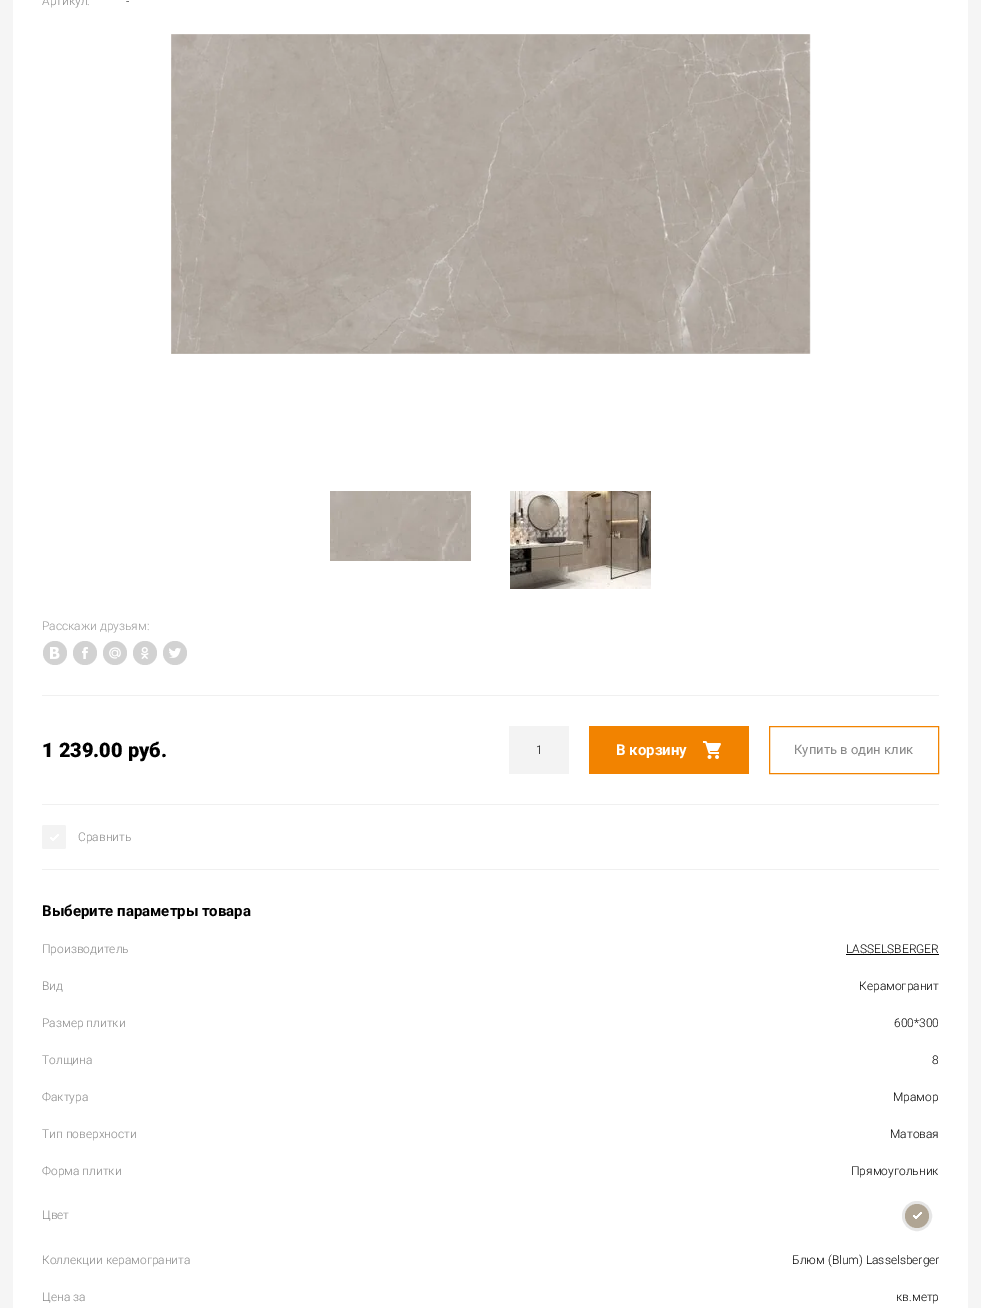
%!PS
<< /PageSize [981 1308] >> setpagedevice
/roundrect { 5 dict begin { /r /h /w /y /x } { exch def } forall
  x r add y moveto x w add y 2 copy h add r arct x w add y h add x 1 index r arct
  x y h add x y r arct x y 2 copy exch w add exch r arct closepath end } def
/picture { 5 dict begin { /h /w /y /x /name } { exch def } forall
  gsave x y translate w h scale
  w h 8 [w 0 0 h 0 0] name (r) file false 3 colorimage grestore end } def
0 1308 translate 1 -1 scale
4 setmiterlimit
0.961 setgray
0 0 981 1308 rectfill
1 setgray
13 0 955 1308 rectfill
/Roboto-Light [12 0 0 -12 0 0] selectfont
0.533 setgray
42 5 moveto (Артикул:) show
0 setgray
126 5 moveto (-) show
(img1.rgb) 171 34 640 320 picture
(img2.rgb) 330 491 141 70 picture
(img3.rgb) 510 491 141 98 picture
0.6 setgray
42 630 moveto (Расскажи друзьям:) show
0.824 setgray
newpath 55 653 12 0 360 arc closepath fill
(img4.rgb) 50 647 10 12 picture
newpath 85 653 12 0 360 arc closepath fill
(img5.rgb) 82 647 6 12 picture
newpath 115 653 12 0 360 arc closepath fill
(img6.rgb) 109 647 12 12 picture
newpath 145 653 12 0 360 arc closepath fill
(img7.rgb) 141 647 8 12 picture
newpath 175 653 12 0 360 arc closepath fill
(img8.rgb) 169 648 12 10 picture
0.941 setgray
42 695 897 1 rectfill
42 804 897 1 rectfill
/Roboto-Black [20 0 0 -20 0 0] selectfont
0 setgray
42 757 moveto (1 239.00 руб.) show
0.953 setgray
509 726 60 48 rectfill
/Roboto-Light [12 0 0 -12 0 0] selectfont
0 setgray
536 754 moveto (1) show
0.949 0.514 0 setrgbcolor
589 726 160 48 rectfill
/Roboto-Bold [15 0 0 -15 0 0] selectfont
1 setgray
616 755 moveto (В корзину) show
(img9.rgb) 703 741 18 18 picture
0.949 0.514 0 setrgbcolor
769.5 726.5 169 47 rectstroke
/Roboto-Regular [13 0 0 -13 0 0] selectfont
0.533 setgray
794 754 moveto (Купить в один клик) show
0.941 setgray
42 869 897 1 rectfill
0.953 setgray
42 825 24 24 2 roundrect fill
(img10.rgb) 50 834 9 7 picture
/Roboto-Light [12 0 0 -12 0 0] selectfont
0.533 setgray
78 841 moveto (Сравнить) show
/Roboto-Bold [15 0 0 -15 0 0] selectfont
0 setgray
42 916 moveto (Выберите параметры товара) show
/Roboto-Light [12 0 0 -12 0 0] selectfont
0.533 setgray
42 953 moveto (Производитель) show
0 setgray
846 953 moveto (LASSELSBERGER) show
846 954 93 1 rectfill
0.533 setgray
42 990 moveto (Вид) show
0 setgray
859 990 moveto (Керамогранит) show
0.533 setgray
42 1027 moveto (Размер плитки) show
0 setgray
894 1027 moveto (600*300) show
0.533 setgray
42 1064 moveto (Толщина) show
0 setgray
932 1064 moveto (8) show
0.533 setgray
42 1101 moveto (Фактура) show
0 setgray
893 1101 moveto (Мрамор) show
0.533 setgray
42 1138 moveto (Тип поверхности) show
0 setgray
890 1138 moveto (Матовая) show
0.533 setgray
42 1175 moveto (Форма плитки) show
0 setgray
851 1175 moveto (Прямоугольник) show
0.533 setgray
42 1219 moveto (Цвет) show
0.902 setgray
3 setlinewidth
newpath 917 1216 13.5 0 360 arc closepath stroke
0.69 0.647 0.58 setrgbcolor
newpath 917 1216 12 0 360 arc closepath fill
(img11.rgb) 913 1212 9 7 picture
0.533 setgray
42 1264 moveto (Коллекции керамогранита) show
0 setgray
792 1264 moveto (Блюм \(Blum\) Lasselsberger) show
0.533 setgray
42 1301 moveto (Цена за) show
0 setgray
896 1301 moveto (кв.метр) show
showpage
